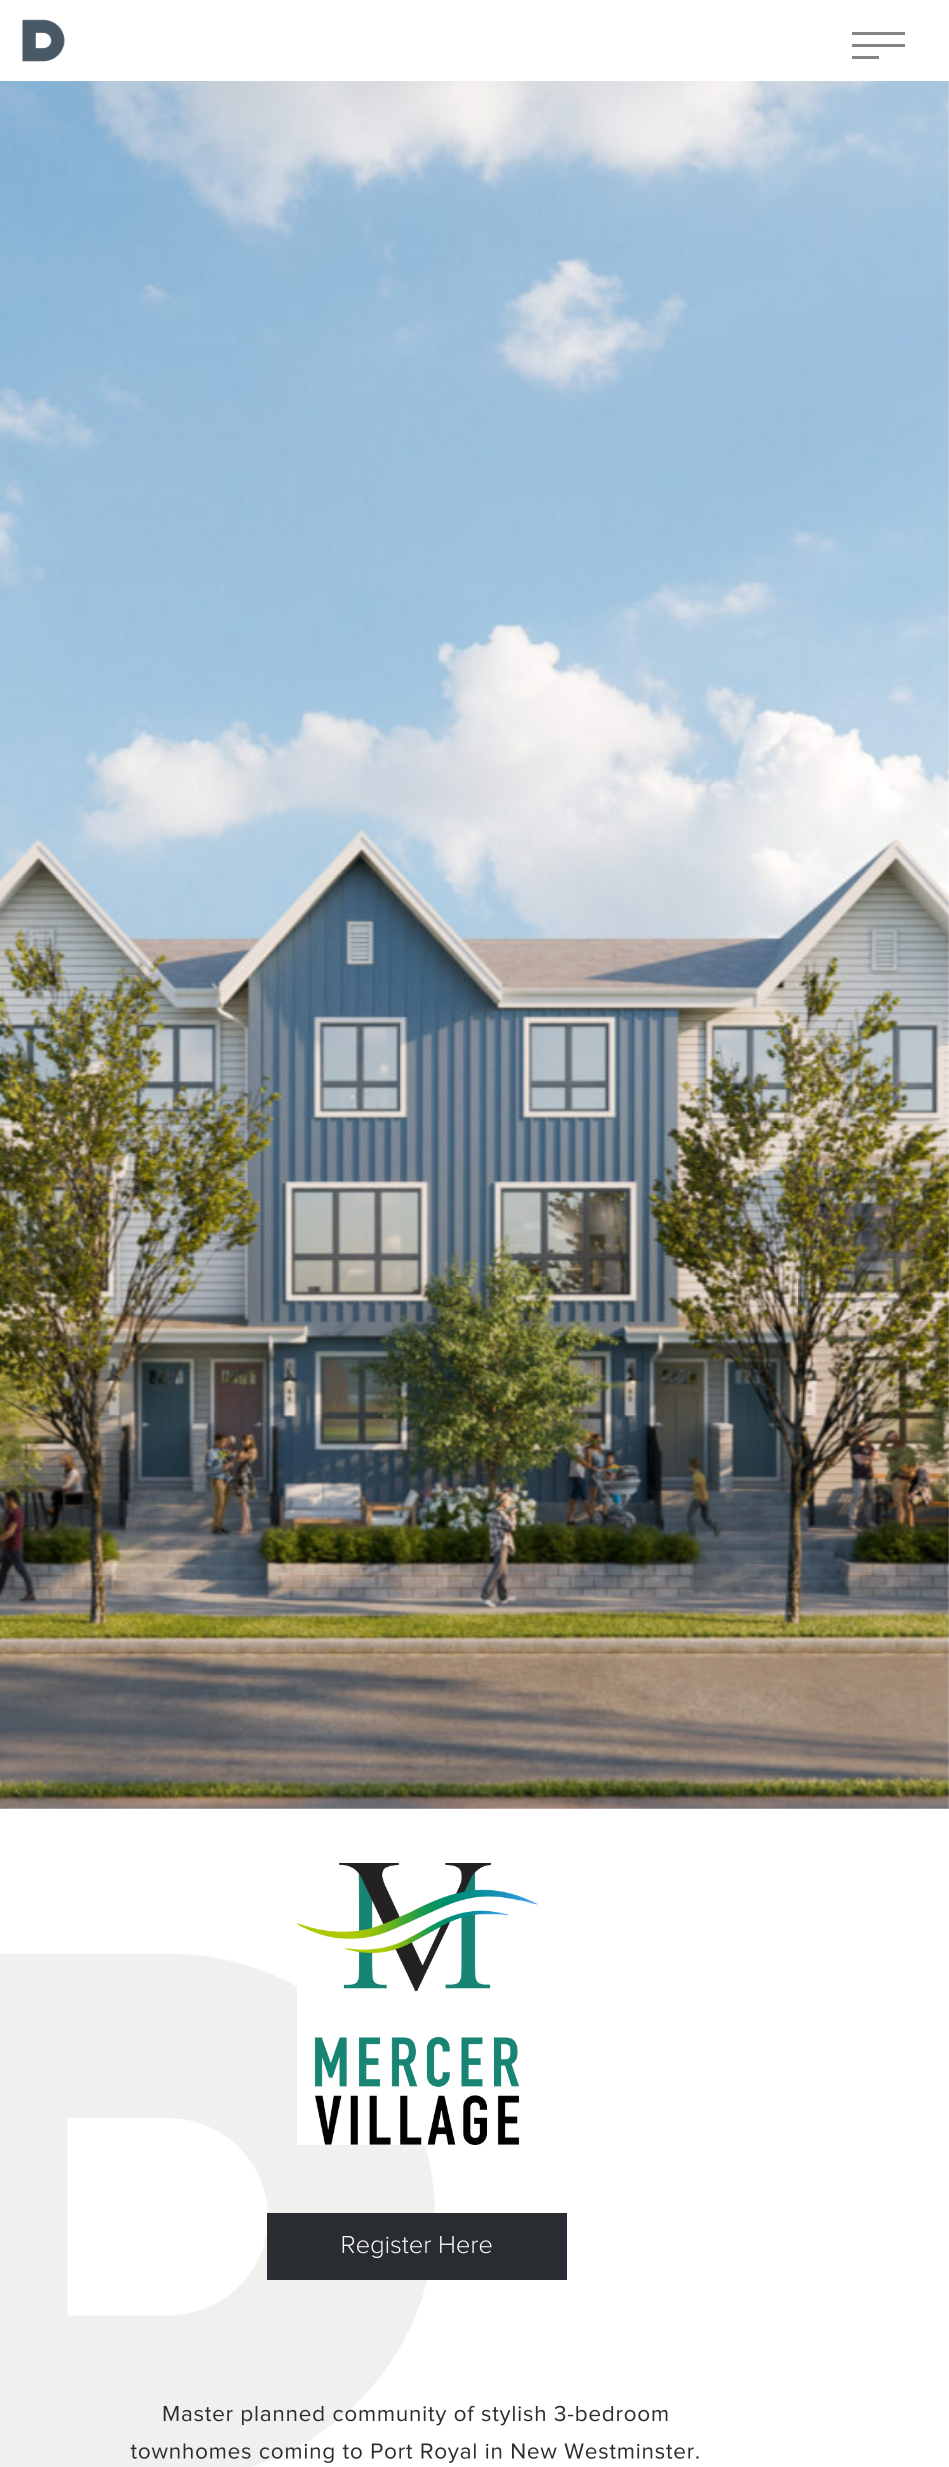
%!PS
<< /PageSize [949 2467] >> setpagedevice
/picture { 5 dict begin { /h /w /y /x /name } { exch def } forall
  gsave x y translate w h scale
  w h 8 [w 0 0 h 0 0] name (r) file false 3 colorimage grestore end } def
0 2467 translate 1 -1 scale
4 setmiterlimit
1 setgray
0 0 949 2467 rectfill
(img1.rgb) 22 19 43 43 picture
0.514 0.522 0.533 setrgbcolor
852 32 53 3 rectfill
852 44 53 3 rectfill
852 56 27 3 rectfill
(img2.rgb) 0 81 949 1728 picture
(img7.rgb) 0 1953 435 514 picture
(img3.rgb) 297 1863 240 282 picture
0.161 0.173 0.192 setrgbcolor
267 2213 300 67 rectfill
(img4.rgb) 342 2236 150 22 picture
(img5.rgb) 163 2405 505 21 picture
(img6.rgb) 130 2443 569 20 picture
showpage
